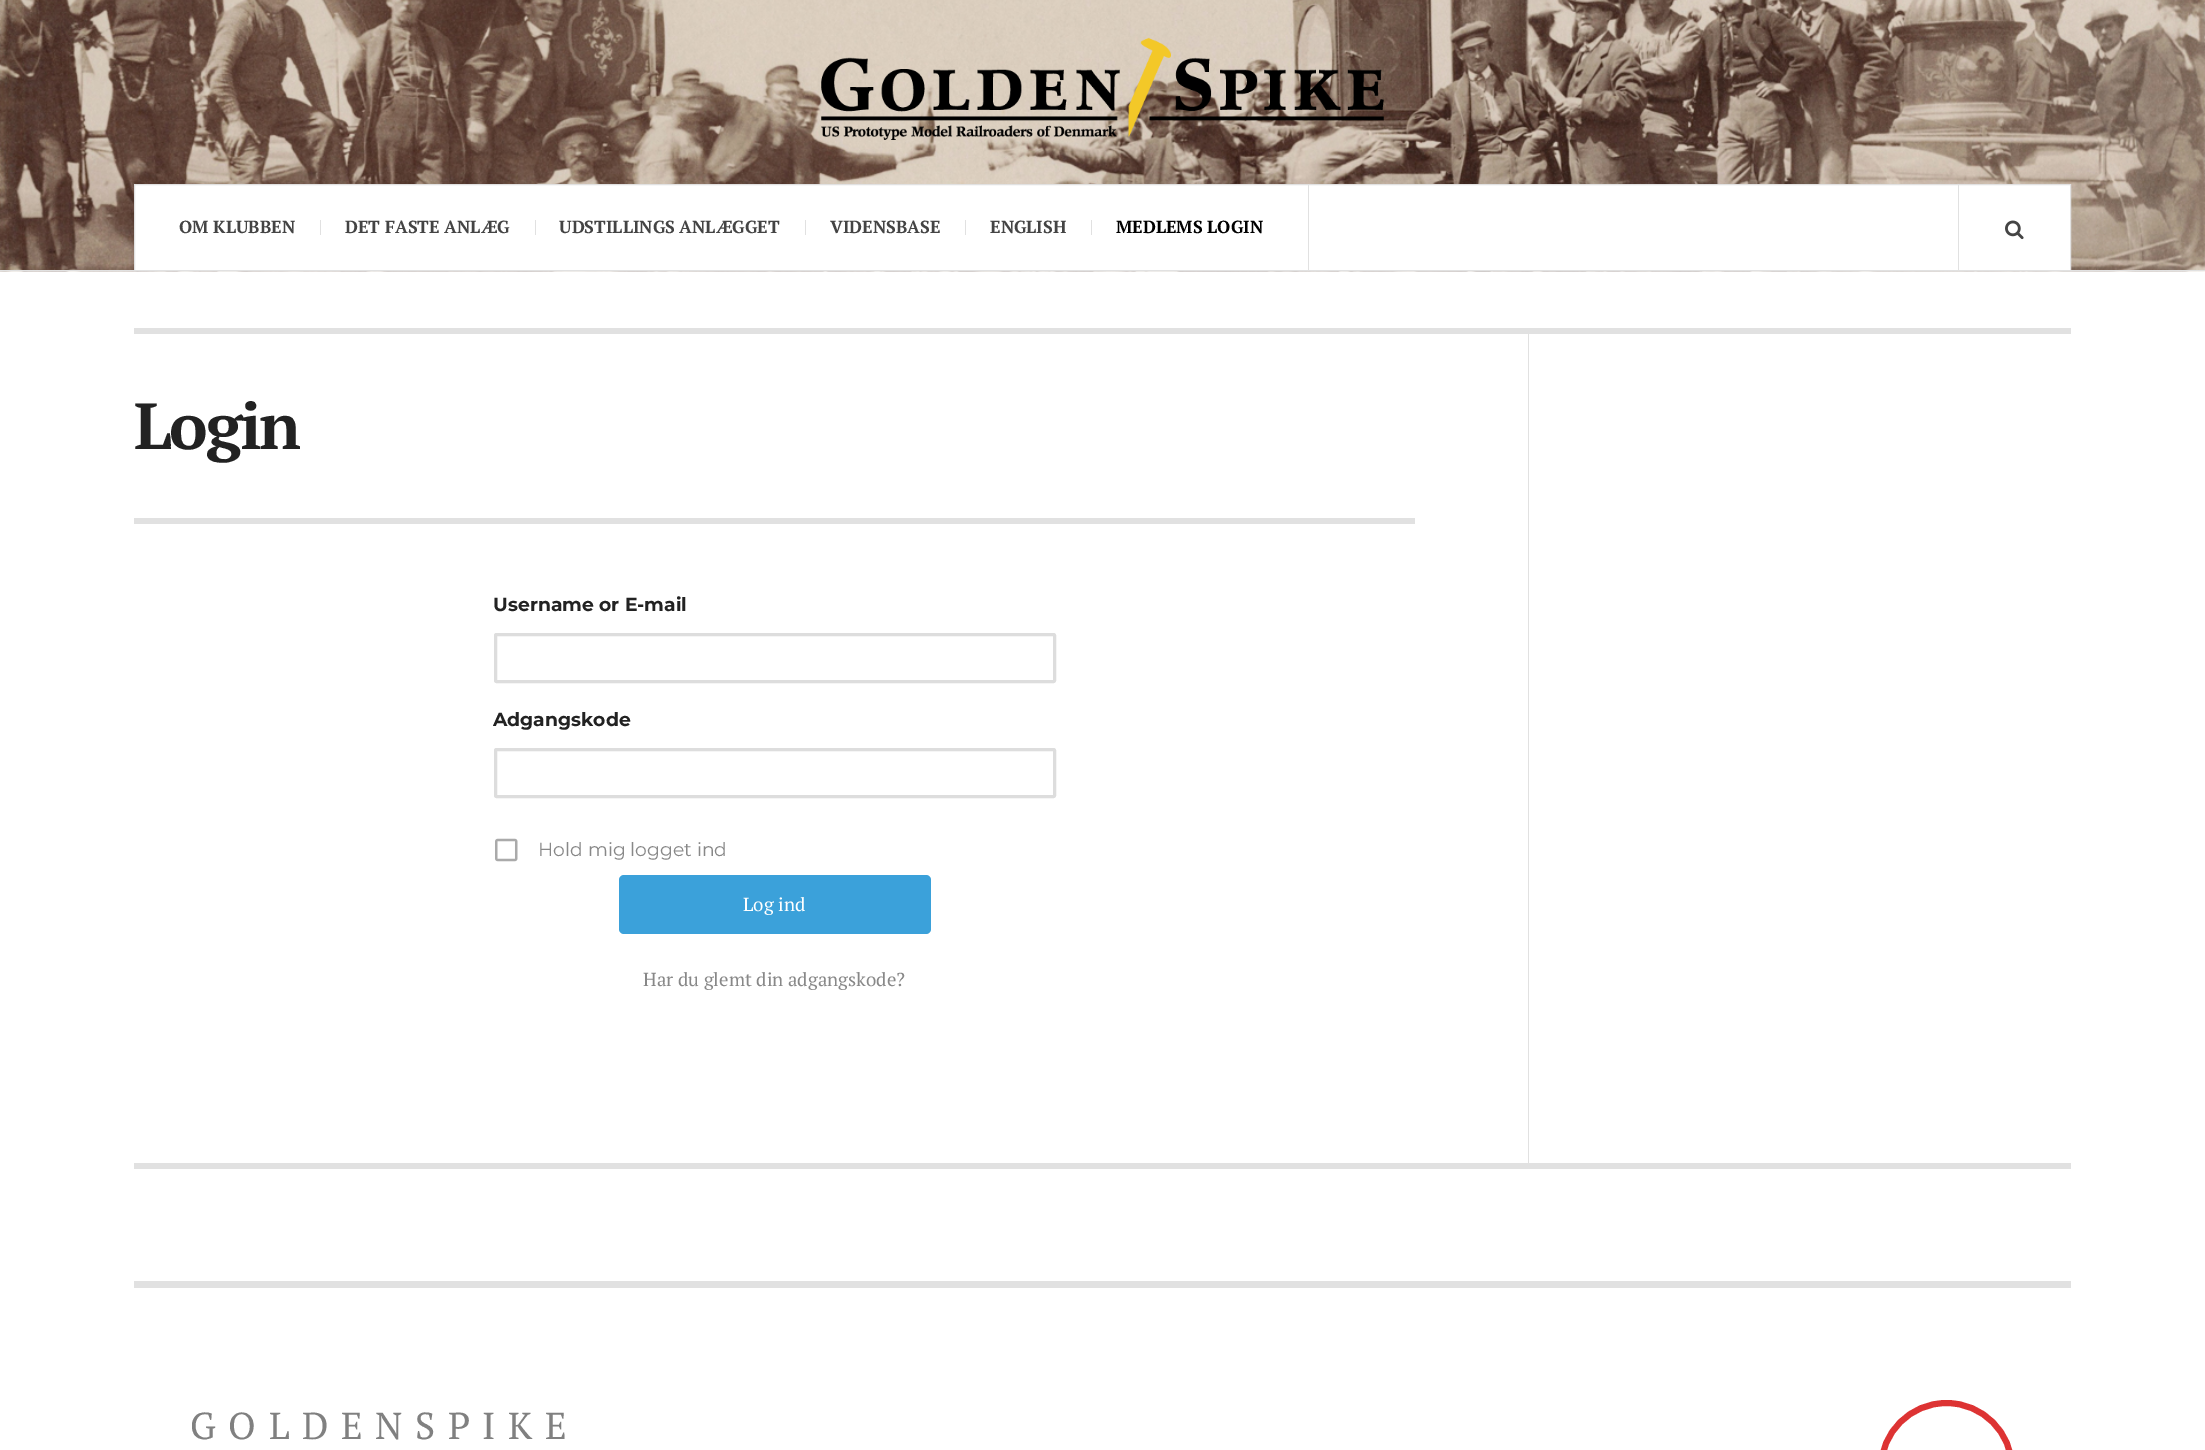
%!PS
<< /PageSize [2205 1450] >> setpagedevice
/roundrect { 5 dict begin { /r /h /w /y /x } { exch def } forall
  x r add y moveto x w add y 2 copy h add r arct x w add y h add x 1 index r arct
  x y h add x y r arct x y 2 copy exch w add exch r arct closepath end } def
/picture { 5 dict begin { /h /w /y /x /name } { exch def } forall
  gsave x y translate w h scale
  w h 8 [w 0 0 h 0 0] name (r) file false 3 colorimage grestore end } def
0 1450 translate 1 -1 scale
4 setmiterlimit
1 setgray
0 0 2205 1450 rectfill
(img1.rgb) 0 0 2205 272 picture
0.882 setgray
0 270 2205 1 rectfill
(img2.rgb) 821 37 563 103 picture
1 setgray
newpath 134.5 184.5 moveto 2070.5 184.5 lineto 2070.5 270.5 lineto 134.5 270.5 lineto closepath gsave fill grestore
0.882 setgray
stroke
1308 185 1 85 rectfill
/PTSerif-Bold [17.5 0 0 -17.5 0 0] selectfont
0.267 setgray
179 233 moveto (OM KLUBBEN) show
0.882 setgray
320 220 1 15 rectfill
0.267 setgray
345 233 moveto (DET FASTE ANLÆG) show
0.882 setgray
535 220 1 15 rectfill
0.267 setgray
559 233 moveto (UDSTILLINGS ANLÆGGET) show
0.882 setgray
805 220 1 15 rectfill
0.267 setgray
830 233 moveto (VIDENSBASE) show
0.882 setgray
965 220 1 15 rectfill
0.267 setgray
990 233 moveto (ENGLISH) show
0.882 setgray
1091 220 1 15 rectfill
0 setgray
1116 233 moveto (MEDLEMS LOGIN) show
0.882 setgray
1958 185 1 85 rectfill
(img3.rgb) 2005 220 19 20 picture
134 328 1937 6 rectfill
134 1163 1937 6 rectfill
1528 334 1 829 rectfill
/PTSerif-Bold [65 0 0 -65 0 0] selectfont
0.133 setgray
134 449 moveto -2.5 0 (Login) ashow
0.882 setgray
134 518 1281 6 rectfill
/Montserrat-Bold [18.75 0 0 -18.75 0 0] selectfont
0.133 setgray
493 611 moveto (Username or E-mail) show
0.867 setgray
3 setlinewidth
495.5 634.5 559 47 1 roundrect stroke
0.133 setgray
493 726 moveto (Adgangskode) show
0.867 setgray
495.5 749.5 559 47 1 roundrect stroke
(img4.rgb) 495 838 23 24 picture
/Montserrat-Regular [18.75 0 0 -18.75 0 0] selectfont
0.533 setgray
538 856 moveto (Hold mig logget ind) show
0.231 0.631 0.855 setrgbcolor
619 875 312 59 5 roundrect fill
/PTSerif-Regular [18.75 0 0 -18.75 0 0] selectfont
1 setgray
743 911 moveto (Log ind) show
0.533 setgray
643 986 moveto (Har du glemt din adgangskode?) show
0.882 setgray
134 1281 1937 7 rectfill
/PTSerif-Regular [37.5 0 0 -37.5 0 0] selectfont
0.502 setgray
190 1439 moveto 12.5 0 (GOLDENSPIKE) ashow
0.867 0.2 0.2 setrgbcolor
6 setlinewidth
1881 1403 131 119 65.5 roundrect stroke
showpage
